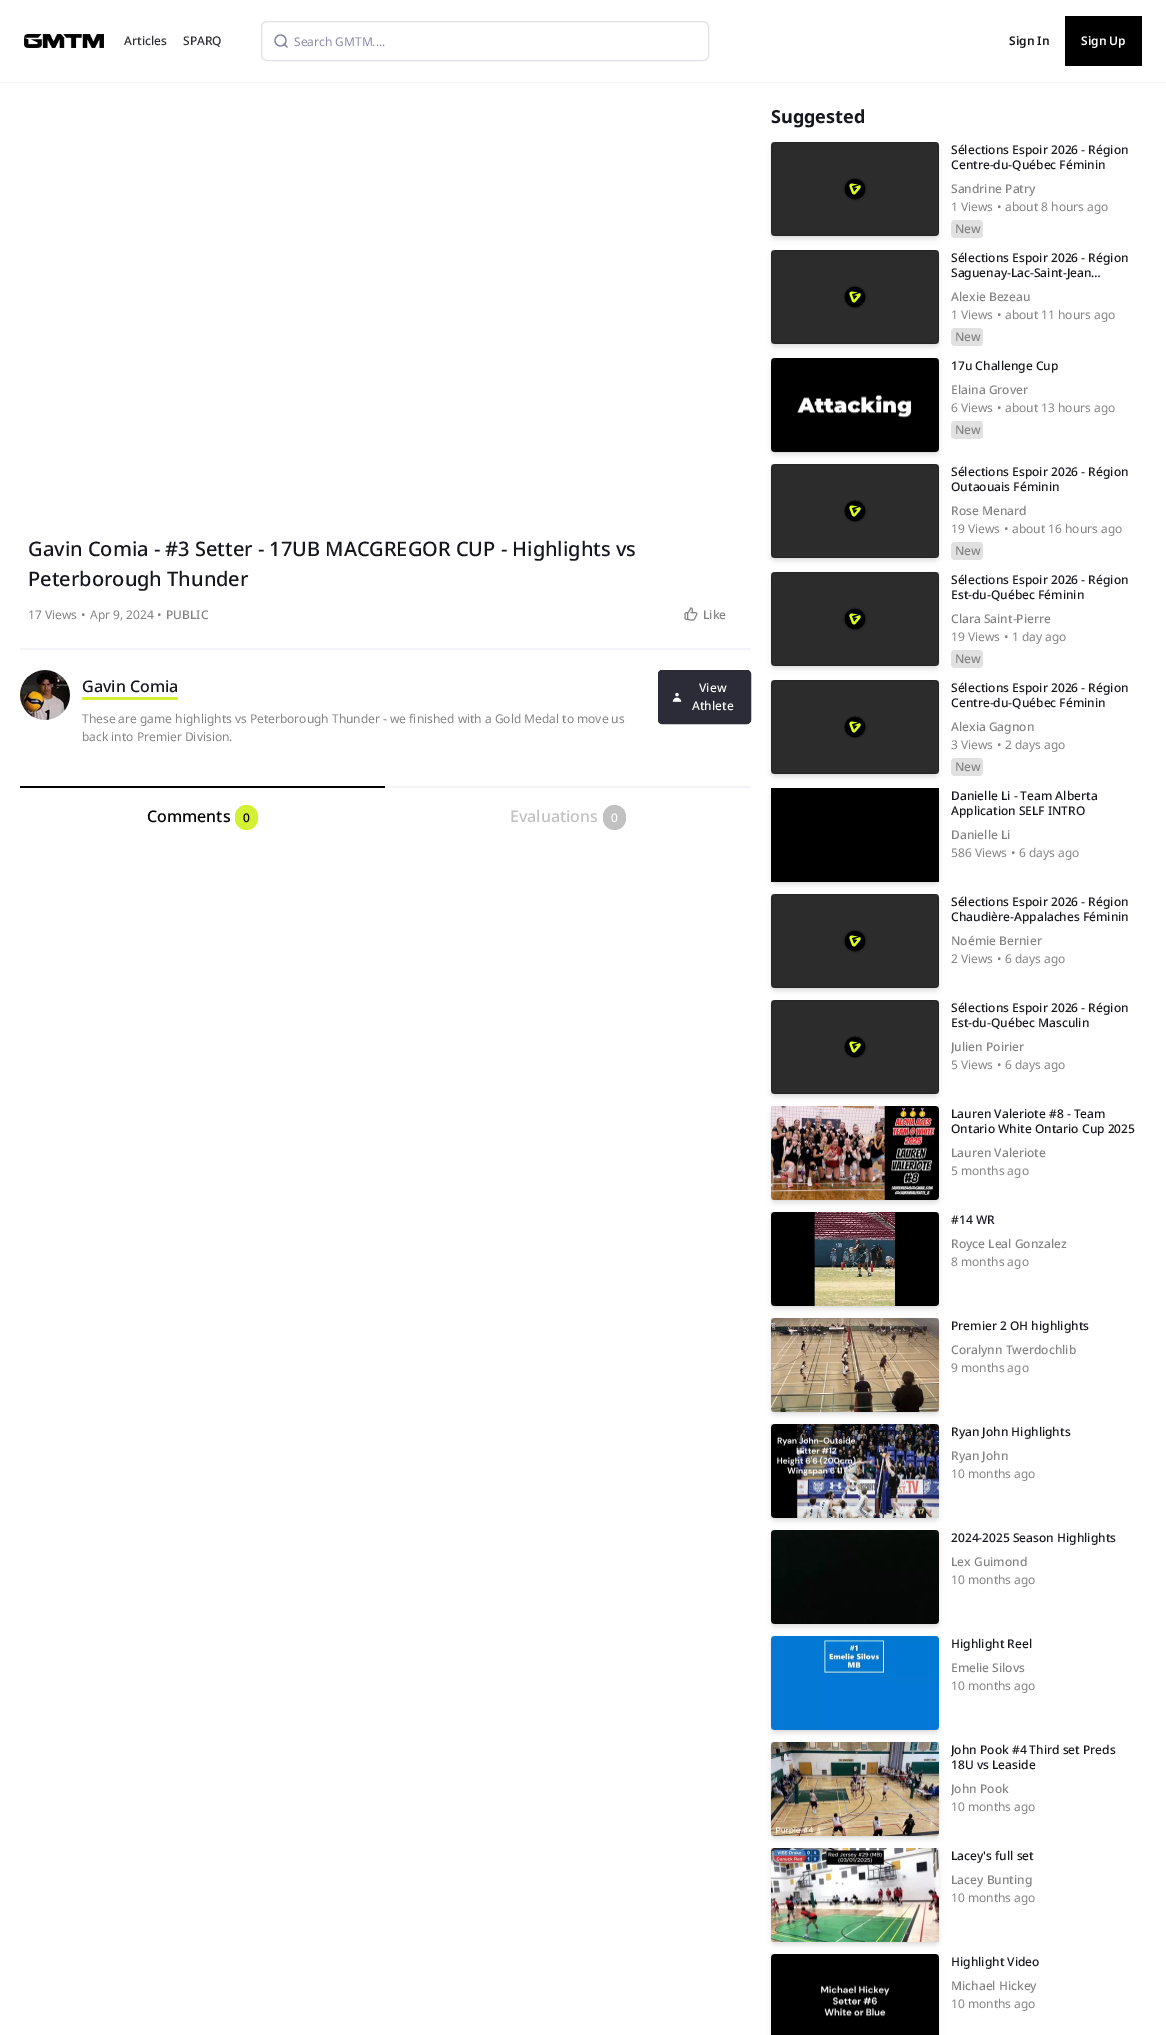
%!PS
<< /PageSize [1166 2035] /PageUsesTransparency true >> setpagedevice
/alpha { dup .setfillconstantalpha .setstrokeconstantalpha } def
/roundrect { 5 dict begin { /r /h /w /y /x } { exch def } forall
  x r add y moveto x w add y 2 copy h add r arct x w add y h add x 1 index r arct
  x y h add x y r arct x y 2 copy exch w add exch r arct closepath end } def
/shadow { 12 dict begin { /a /b /q /h /w /y /x } { exch def } forall gsave /was 0 def
  9 -2 -9 { dup b mul 4 div /e exch def 1 sub .425 mul 2.718 exch exp 1 add a .99 .min exch div /now exch def
    1 1 now sub 1 was sub div sub alpha /was now def
    w h .min e 2 mul add 0 gt { x e sub y e sub w e 2 mul add h e 2 mul add
      q e add b .6 mul add w h .min 2 div e add .min 0 .max roundrect fill } if } for grestore end } def
/picture { 5 dict begin { /h /w /y /x /name } { exch def } forall
  gsave x y translate w h scale
  w h 8 [w 0 0 h 0 0] name (r) file false 3 colorimage grestore end } def
0 .pushpdf14devicefilter
0 2035 translate 1 -1 scale
4 setmiterlimit
1 setgray
0 0 1166 2035 rectfill
0.957 0.957 0.973 setrgbcolor
0 82 1166 1 rectfill
(img1.rgb) 24 34 80 14 picture
/NotoSans-Medium [12 0 0 -12 0 0] selectfont
0.176 0.176 0.208 setrgbcolor
124 45 moveto (Articles) show
183 45 moveto (SPARQ) show
0.882 0.882 0.918 setrgbcolor
261.5 21.5 447 39 5.5 roundrect stroke
0.533 0.533 0.667 setrgbcolor
1.3 setlinewidth
newpath 280.5 40.5 5.5 0 360 arc closepath stroke
1 setlinecap
1 setlinejoin
newpath 287 47 moveto 284 44 lineto stroke
/NotoSans-Regular [12 0 0 -12 0 0] selectfont
294 46 moveto (Search GMTM....) show
/NotoSans-SemiBold [12 0 0 -12 0 0] selectfont
0.086 0.086 0.122 setrgbcolor
1009 45 moveto (Sign In) show
0 setgray
1065 16 77 50 rectfill
1 setgray
1081 45 moveto (Sign Up) show
0.957 0.957 0.973 setrgbcolor
20 648 731 2 rectfill
/NotoSans-Medium [20 0 0 -20 0 0] selectfont
0.086 0.086 0.122 setrgbcolor
28 556 moveto (Gavin Comia - #3 Setter - 17UB MACGREGOR CUP - Highlights vs) show
28 586 moveto (Peterborough Thunder) show
/NotoSans-Regular [12 0 0 -12 0 0] selectfont
0.514 setgray
28 619 moveto (17 Views) show
81 619 moveto (•) show
90 619 moveto (Apr 9, 2024) show
157 619 moveto (•) show
/NotoSans-Medium [12 0 0 -12 0 0] selectfont
166 619 moveto (PUBLIC) show
(img2.rgb) 684 607 14 14 picture
703 619 moveto (Like) show
(img3.rgb) 20 670 50 50 picture
/NotoSans-Medium [16 0 0 -16 0 0] selectfont
0.086 0.086 0.122 setrgbcolor
82 692 moveto (Gavin Comia) show
0.827 0.945 0.196 setrgbcolor
82 697 96 3 rectfill
/NotoSans-Regular [12 0 0 -12 0 0] selectfont
0.514 setgray
82 723 moveto (These are game highlights vs Peterborough Thunder - we finished with a Gold Medal to move us) show
82 741 moveto (back into Premier Division.) show
0.173 0.173 0.22 setrgbcolor
658.5 670.5 92 53 3.5 roundrect gsave fill grestore
1 setlinewidth
0 setlinecap
0 setlinejoin
stroke
(img4.rgb) 672 692 10 10 picture
/NotoSans-Medium [12 0 0 -12 0 0] selectfont
1 setgray
699 692 moveto (View) show
692 710 moveto (Athlete) show
0 setgray
20 786 365 2 rectfill
/NotoSans-Medium [16 0 0 -16 0 0] selectfont
147 822 moveto (Comments) show
0.827 0.945 0.196 setrgbcolor
235 805 23 25 11.5 roundrect fill
/NotoSans-Medium [12 0 0 -12 0 0] selectfont
0 setgray
243 822 moveto (0) show
0.957 0.957 0.973 setrgbcolor
385 786 366 2 rectfill
/NotoSans-Medium [16 0 0 -16 0 0] selectfont
0.757 setgray
510 822 moveto (Evaluations) show
603 805 23 25 11.5 roundrect fill
/NotoSans-Medium [12 0 0 -12 0 0] selectfont
1 setgray
611 822 moveto (0) show
/NotoSans-Bold [18 0 0 -18 0 0] selectfont
0.086 0.086 0.122 setrgbcolor
771 123 moveto (Suggested) show
0.882 setgray
771 142 168 94 rectfill
0 setgray
773 146 164 90 2 2 0.1 shadow
772 147 166 92 3 3 0.1 shadow
(img5.rgb) 771 142 168 94 picture
/NotoSans-Medium [12 0 0 -12 0 0] selectfont
0.086 0.086 0.122 setrgbcolor
951 154 moveto (Sélections Espoir 2026 - Région) show
951 169 moveto (Centre-du-Québec Féminin) show
0.514 setgray
951 193 moveto (Sandrine Patry) show
/NotoSans-Regular [12 0 0 -12 0 0] selectfont
951 211 moveto (1 Views) show
997 211 moveto (•) show
1005 211 moveto (about 8 hours ago) show
0.882 setgray
951 220 32 18 4 roundrect fill
/NotoSans-Medium [12 0 0 -12 0 0] selectfont
0.514 setgray
955 233 moveto (New) show
0.882 setgray
771 250 168 94 rectfill
0 setgray
773 254 164 90 2 2 0.1 shadow
772 255 166 92 3 3 0.1 shadow
(img5.rgb) 771 250 168 94 picture
0.086 0.086 0.122 setrgbcolor
951 262 moveto (Sélections Espoir 2026 - Région) show
951 277 moveto (Saguenay-Lac-Saint-Jean…) show
0.514 setgray
951 301 moveto (Alexie Bezeau) show
/NotoSans-Regular [12 0 0 -12 0 0] selectfont
951 319 moveto (1 Views) show
997 319 moveto (•) show
1005 319 moveto (about 11 hours ago) show
0.882 setgray
951 328 32 18 4 roundrect fill
/NotoSans-Medium [12 0 0 -12 0 0] selectfont
0.514 setgray
955 341 moveto (New) show
0.882 setgray
771 358 168 94 rectfill
0 setgray
773 362 164 90 2 2 0.1 shadow
0.882 setgray
771 464 168 94 rectfill
0 setgray
772 363 166 92 3 3 0.1 shadow
(img6.rgb) 771 358 168 94 picture
0.086 0.086 0.122 setrgbcolor
951 370 moveto (17u Challenge Cup) show
0.514 setgray
951 394 moveto (Elaina Grover) show
/NotoSans-Regular [12 0 0 -12 0 0] selectfont
951 412 moveto (6 Views) show
997 412 moveto (•) show
1005 412 moveto (about 13 hours ago) show
0.882 setgray
951 421 32 18 4 roundrect fill
/NotoSans-Medium [12 0 0 -12 0 0] selectfont
0.514 setgray
955 434 moveto (New) show
0 setgray
773 468 164 90 2 2 0.1 shadow
772 469 166 92 3 3 0.1 shadow
(img7.rgb) 771 464 168 94 picture
0.086 0.086 0.122 setrgbcolor
951 476 moveto (Sélections Espoir 2026 - Région) show
951 491 moveto (Outaouais Féminin) show
0.514 setgray
951 515 moveto (Rose Menard) show
/NotoSans-Regular [12 0 0 -12 0 0] selectfont
951 533 moveto (19 Views) show
1004 533 moveto (•) show
1012 533 moveto (about 16 hours ago) show
0.882 setgray
951 542 32 18 4 roundrect fill
/NotoSans-Medium [12 0 0 -12 0 0] selectfont
0.514 setgray
955 555 moveto (New) show
0.882 setgray
771 572 168 94 rectfill
0 setgray
773 576 164 90 2 2 0.1 shadow
772 577 166 92 3 3 0.1 shadow
(img5.rgb) 771 572 168 94 picture
0.086 0.086 0.122 setrgbcolor
951 584 moveto (Sélections Espoir 2026 - Région) show
951 599 moveto (Est-du-Québec Féminin) show
0.514 setgray
951 623 moveto (Clara Saint-Pierre) show
/NotoSans-Regular [12 0 0 -12 0 0] selectfont
951 641 moveto (19 Views) show
1004 641 moveto (•) show
1012 641 moveto (1 day ago) show
0.882 setgray
951 650 32 18 4 roundrect fill
/NotoSans-Medium [12 0 0 -12 0 0] selectfont
0.514 setgray
955 663 moveto (New) show
0.882 setgray
771 680 168 94 rectfill
0 setgray
773 684 164 90 2 2 0.1 shadow
772 685 166 92 3 3 0.1 shadow
(img5.rgb) 771 680 168 94 picture
0.086 0.086 0.122 setrgbcolor
951 692 moveto (Sélections Espoir 2026 - Région) show
951 707 moveto (Centre-du-Québec Féminin) show
0.514 setgray
951 731 moveto (Alexia Gagnon) show
/NotoSans-Regular [12 0 0 -12 0 0] selectfont
951 749 moveto (3 Views) show
997 749 moveto (•) show
1005 749 moveto (2 days ago) show
0.882 setgray
951 758 32 18 4 roundrect fill
/NotoSans-Medium [12 0 0 -12 0 0] selectfont
0.514 setgray
955 771 moveto (New) show
0 setgray
773 792 164 90 2 2 0.1 shadow
0.882 setgray
771 894 168 94 rectfill
0 setgray
772 793 166 92 3 3 0.1 shadow
771 788 168 94 rectfill
0.086 0.086 0.122 setrgbcolor
951 800 moveto (Danielle Li - Team Alberta) show
951 815 moveto (Application SELF INTRO) show
0.514 setgray
951 839 moveto (Danielle Li) show
/NotoSans-Regular [12 0 0 -12 0 0] selectfont
951 857 moveto (586 Views) show
1011 857 moveto (•) show
1019 857 moveto (6 days ago) show
0 setgray
773 898 164 90 2 2 0.1 shadow
0.882 setgray
771 1000 168 94 rectfill
0 setgray
772 899 166 92 3 3 0.1 shadow
(img5.rgb) 771 894 168 94 picture
/NotoSans-Medium [12 0 0 -12 0 0] selectfont
0.086 0.086 0.122 setrgbcolor
951 906 moveto (Sélections Espoir 2026 - Région) show
951 921 moveto (Chaudière-Appalaches Féminin) show
0.514 setgray
951 945 moveto (Noémie Bernier) show
/NotoSans-Regular [12 0 0 -12 0 0] selectfont
951 963 moveto (2 Views) show
997 963 moveto (•) show
1005 963 moveto (6 days ago) show
0 setgray
773 1004 164 90 2 2 0.1 shadow
0.882 setgray
771 1106 168 94 rectfill
0 setgray
772 1005 166 92 3 3 0.1 shadow
(img5.rgb) 771 1000 168 94 picture
/NotoSans-Medium [12 0 0 -12 0 0] selectfont
0.086 0.086 0.122 setrgbcolor
951 1012 moveto (Sélections Espoir 2026 - Région) show
951 1027 moveto (Est-du-Québec Masculin) show
gsave
951 1030 187 26 rectclip
0.514 setgray
951 1051 moveto (Julien) show
grestore
0.514 setgray
986 1051 moveto (Poirier) show
/NotoSans-Regular [12 0 0 -12 0 0] selectfont
951 1069 moveto (5 Views) show
997 1069 moveto (•) show
1005 1069 moveto (6 days ago) show
0 setgray
773 1110 164 90 2 2 0.1 shadow
0.882 setgray
771 1212 168 94 rectfill
0 setgray
772 1111 166 92 3 3 0.1 shadow
(img8.rgb) 771 1106 168 94 picture
/NotoSans-Medium [12 0 0 -12 0 0] selectfont
0.086 0.086 0.122 setrgbcolor
951 1118 moveto (Lauren Valeriote #8 - Team) show
951 1133 moveto (Ontario White Ontario Cup 2025) show
0.514 setgray
951 1157 moveto (Lauren Valeriote) show
/NotoSans-Regular [12 0 0 -12 0 0] selectfont
951 1175 moveto (5 months ago) show
0 setgray
773 1216 164 90 2 2 0.1 shadow
0.882 setgray
771 1318 168 94 rectfill
0 setgray
772 1217 166 92 3 3 0.1 shadow
(img9.rgb) 771 1212 168 94 picture
/NotoSans-Medium [12 0 0 -12 0 0] selectfont
0.086 0.086 0.122 setrgbcolor
951 1224 moveto (#14 WR) show
0.514 setgray
951 1248 moveto (Royce Leal Gonzalez) show
/NotoSans-Regular [12 0 0 -12 0 0] selectfont
951 1266 moveto (8 months ago) show
0 setgray
773 1322 164 90 2 2 0.1 shadow
0.882 setgray
771 1424 168 94 rectfill
0 setgray
772 1323 166 92 3 3 0.1 shadow
(img10.rgb) 771 1318 168 94 picture
/NotoSans-Medium [12 0 0 -12 0 0] selectfont
0.086 0.086 0.122 setrgbcolor
951 1330 moveto (Premier 2 OH highlights) show
0.514 setgray
951 1354 moveto (Coralynn Twerdochlib) show
/NotoSans-Regular [12 0 0 -12 0 0] selectfont
951 1372 moveto (9 months ago) show
0 setgray
773 1428 164 90 2 2 0.1 shadow
0.882 setgray
771 1530 168 94 rectfill
0 setgray
772 1429 166 92 3 3 0.1 shadow
(img11.rgb) 771 1424 168 94 picture
/NotoSans-Medium [12 0 0 -12 0 0] selectfont
0.086 0.086 0.122 setrgbcolor
951 1436 moveto (Ryan John Highlights) show
0.514 setgray
951 1460 moveto (Ryan John) show
/NotoSans-Regular [12 0 0 -12 0 0] selectfont
951 1478 moveto (10 months ago) show
0 setgray
773 1534 164 90 2 2 0.1 shadow
0.882 setgray
771 1636 168 94 rectfill
0 setgray
772 1535 166 92 3 3 0.1 shadow
(img12.rgb) 771 1530 168 94 picture
/NotoSans-Medium [12 0 0 -12 0 0] selectfont
0.086 0.086 0.122 setrgbcolor
951 1542 moveto (2024-2025 Season Highlights) show
0.514 setgray
951 1566 moveto (Lex Guimond) show
/NotoSans-Regular [12 0 0 -12 0 0] selectfont
951 1584 moveto (10 months ago) show
0 setgray
773 1640 164 90 2 2 0.1 shadow
0.882 setgray
771 1742 168 94 rectfill
0 setgray
772 1641 166 92 3 3 0.1 shadow
(img13.rgb) 771 1636 168 94 picture
/NotoSans-Medium [12 0 0 -12 0 0] selectfont
0.086 0.086 0.122 setrgbcolor
951 1648 moveto (Highlight Reel) show
0.514 setgray
951 1672 moveto (Emelie Silovs) show
/NotoSans-Regular [12 0 0 -12 0 0] selectfont
951 1690 moveto (10 months ago) show
0 setgray
773 1746 164 90 2 2 0.1 shadow
0.882 setgray
771 1848 168 94 rectfill
0 setgray
772 1747 166 92 3 3 0.1 shadow
(img14.rgb) 771 1742 168 94 picture
gsave
951 1742 187 30 rectclip
/NotoSans-Medium [12 0 0 -12 0 0] selectfont
0.086 0.086 0.122 setrgbcolor
951 1754 moveto (John Pook #4 Third set Preds) show
grestore
/NotoSans-Medium [12 0 0 -12 0 0] selectfont
0.086 0.086 0.122 setrgbcolor
951 1769 moveto (18U vs Leaside) show
gsave
951 1772 187 26 rectclip
0.514 setgray
951 1793 moveto (John) show
grestore
0.514 setgray
980 1793 moveto (Pook) show
/NotoSans-Regular [12 0 0 -12 0 0] selectfont
951 1811 moveto (10 months ago) show
0 setgray
773 1852 164 90 2 2 0.1 shadow
0.882 setgray
771 1954 168 4 rectfill
0 setgray
772 1853 166 92 3 3 0.1 shadow
(img15.rgb) 771 1848 168 94 picture
/NotoSans-Medium [12 0 0 -12 0 0] selectfont
0.086 0.086 0.122 setrgbcolor
951 1860 moveto (Lacey's full set) show
0.514 setgray
951 1884 moveto (Lacey Bunting) show
/NotoSans-Regular [12 0 0 -12 0 0] selectfont
951 1902 moveto (10 months ago) show
0 setgray
772 1959 166 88 3 3 0.1 shadow
(img16.rgb) 771 1954 168 81 picture
/NotoSans-Medium [12 0 0 -12 0 0] selectfont
0.086 0.086 0.122 setrgbcolor
951 1966 moveto (Highlight Video) show
0.514 setgray
951 1990 moveto (Michael Hickey) show
/NotoSans-Regular [12 0 0 -12 0 0] selectfont
951 2008 moveto (10 months ago) show
.poppdf14devicefilter showpage
